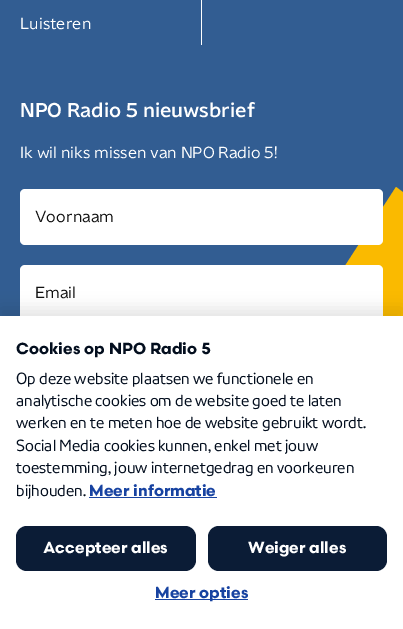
%!PS
<< /PageSize [403 629] /PageUsesTransparency true >> setpagedevice
/alpha { dup .setfillconstantalpha .setstrokeconstantalpha } def
/roundrect { 5 dict begin { /r /h /w /y /x } { exch def } forall
  x r add y moveto x w add y 2 copy h add r arct x w add y h add x 1 index r arct
  x y h add x y r arct x y 2 copy exch w add exch r arct closepath end } def
/shadow { 12 dict begin { /a /b /q /h /w /y /x } { exch def } forall gsave /was 0 def
  9 -2 -9 { dup b mul 4 div /e exch def 1 sub .425 mul 2.718 exch exp 1 add a .99 .min exch div /now exch def
    1 1 now sub 1 was sub div sub alpha /was now def
    w h .min e 2 mul add 0 gt { x e sub y e sub w e 2 mul add h e 2 mul add
      q e add b .6 mul add w h .min 2 div e add .min 0 .max roundrect fill } if } for grestore end } def
0 .pushpdf14devicefilter
0 629 translate 1 -1 scale
4 setmiterlimit
0.196 0.365 0.573 setrgbcolor
0 0 403 629 rectfill
/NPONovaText-Regular [16 0 0 -16 0 0] selectfont
1 setgray
20 29 moveto (Luisteren) show
201 0 1 45 rectfill
/NPONovaText-Medium [20 0 0 -20 0 0] selectfont
20 117 moveto (NPO Radio 5 nieuwsbrief) show
/NPONovaText-Regular [16 0 0 -16 0 0] selectfont
20 158 moveto (Ik wil niks missen van NPO Radio 5!) show
0.98 0.729 0 setrgbcolor
newpath 290 351 moveto 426 452 lineto 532 288 lineto 396 187 lineto closepath fill
1 setgray
20 189 363 56 5 roundrect fill
0.063 setgray
35 222 moveto (Voornaam) show
1 setgray
20 265 363 56 5 roundrect fill
0.063 setgray
35 298 moveto (Email) show
0 setgray
0 308 403 313 0 7.5 0.1 shadow
1 setgray
0 316 403 313 rectfill
/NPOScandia-Bold [16 0 0 -16 0 0] selectfont
0.012 0.055 0.118 setrgbcolor
16 354 moveto (Cookies op NPO Radio 5) show
/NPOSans-Regular [16 0 0 -16 0 0] selectfont
16 384 moveto (Op deze website plaatsen we functionele en) show
16 406 moveto (analytische cookies om de website goed te laten) show
16 428 moveto (werken en te meten hoe de website gebruikt wordt.) show
16 451 moveto (Social Media cookies kunnen, enkel met jouw) show
16 473 moveto (toestemming, jouw internetgedrag en voorkeuren) show
16 496 moveto (bijhouden.) show
/NPOScandia-Bold [16 0 0 -16 0 0] selectfont
0.094 0.263 0.631 setrgbcolor
89 496 moveto (Meer informatie) show
89 497 128 1 rectfill
0.043 0.11 0.212 setrgbcolor
16 526 180 45 11 roundrect fill
1 setgray
43 553 moveto (Accepteer alles) show
0.043 0.11 0.212 setrgbcolor
208 526 179 45 11 roundrect fill
1 setgray
248 553 moveto (Weiger alles) show
0.094 0.263 0.631 setrgbcolor
155 599 93 1 rectfill
155 598 moveto (Meer opties) show
.poppdf14devicefilter showpage
